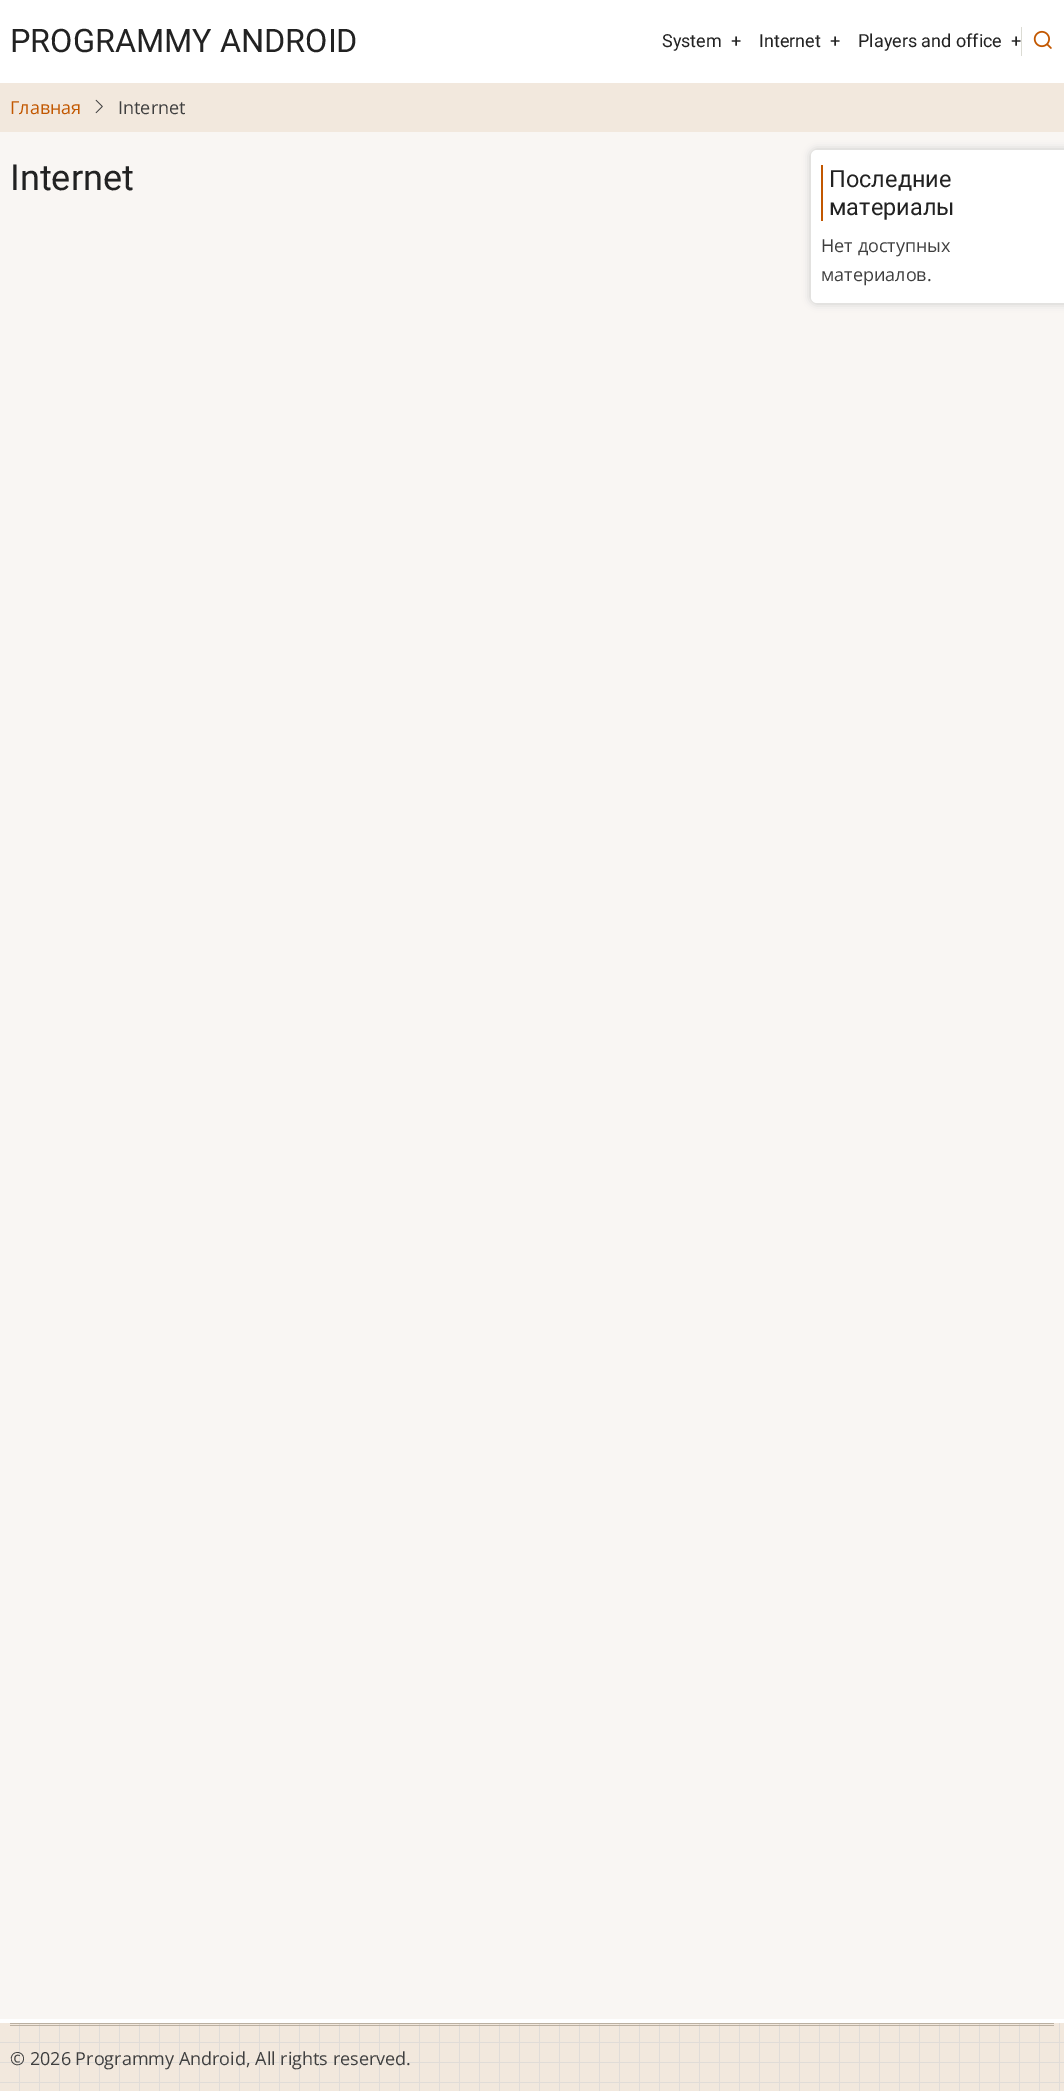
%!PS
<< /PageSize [1064 2091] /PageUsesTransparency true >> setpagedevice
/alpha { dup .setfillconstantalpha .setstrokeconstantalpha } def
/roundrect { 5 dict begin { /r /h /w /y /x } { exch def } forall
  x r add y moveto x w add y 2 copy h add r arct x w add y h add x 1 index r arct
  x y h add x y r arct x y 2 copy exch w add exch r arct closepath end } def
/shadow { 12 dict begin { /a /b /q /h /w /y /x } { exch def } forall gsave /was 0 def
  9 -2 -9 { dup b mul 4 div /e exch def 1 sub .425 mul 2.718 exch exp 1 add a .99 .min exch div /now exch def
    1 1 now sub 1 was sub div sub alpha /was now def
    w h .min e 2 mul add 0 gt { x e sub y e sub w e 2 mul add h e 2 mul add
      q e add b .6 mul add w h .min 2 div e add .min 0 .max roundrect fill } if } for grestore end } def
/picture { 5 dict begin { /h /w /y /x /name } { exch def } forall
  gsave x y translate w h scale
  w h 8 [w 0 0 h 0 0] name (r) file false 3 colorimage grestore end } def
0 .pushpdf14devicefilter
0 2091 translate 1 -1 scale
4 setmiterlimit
0.976 0.965 0.953 setrgbcolor
0 0 1064 2091 rectfill
1 setgray
0 0 1064 83 rectfill
/Roboto-Regular [32.4 0 0 -32.4 0 0] selectfont
0.133 setgray
10 52 moveto (РROGRAMMY ANDROID) show
/Roboto-Regular [18 0 0 -18 0 0] selectfont
662 47 moveto (System) show
731 47 moveto (+) show
759 47 moveto (Internet) show
830 47 moveto (+) show
858 47 moveto (Players and office) show
1011 47 moveto (+) show
0.859 0.859 0.827 setrgbcolor
1021 27 1 29 rectfill
(img1.rgb) 1033 30 19 19 picture
0.949 0.91 0.867 setrgbcolor
0 83 1064 49 rectfill
/OpenSans-Regular [18 0 0 -18 0 0] selectfont
0.761 0.341 0 setrgbcolor
10 114 moveto (Главная) show
(img2.rgb) 95 99 8 15 picture
0.247 setgray
118 114 moveto (Internet) show
/Roboto-Regular [36 0 0 -36 0 0] selectfont
0.133 setgray
10 190 moveto (Internet) show
0.8 setgray
810 149 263 155 7 4 1 shadow
1 setgray
811 150 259 153 6 roundrect fill
0.761 0.341 0 setrgbcolor
821 165 2 56 rectfill
/Roboto-Regular [23.5 0 0 -23.5 0 0] selectfont
0.133 setgray
829 187 moveto (Последние) show
829 215 moveto (материалы) show
/OpenSans-Regular [18 0 0 -18 0 0] selectfont
0.247 setgray
821 252 moveto (Нет доступных) show
821 281 moveto (материалов.) show
0.949 0.91 0.867 setrgbcolor
0 2023 1064 68 rectfill
(img3.rgb) 0 2023 1064 68 picture
1 setgray
0 2019 1064 4 rectfill
0.733 0.69 0.631 setrgbcolor
10 2023 1044 1 rectfill
10 2025 1044 1 rectfill
0.247 setgray
10 2065 moveto (© 2026 Рrogrammy Android, All rights reserved.) show
.poppdf14devicefilter showpage
